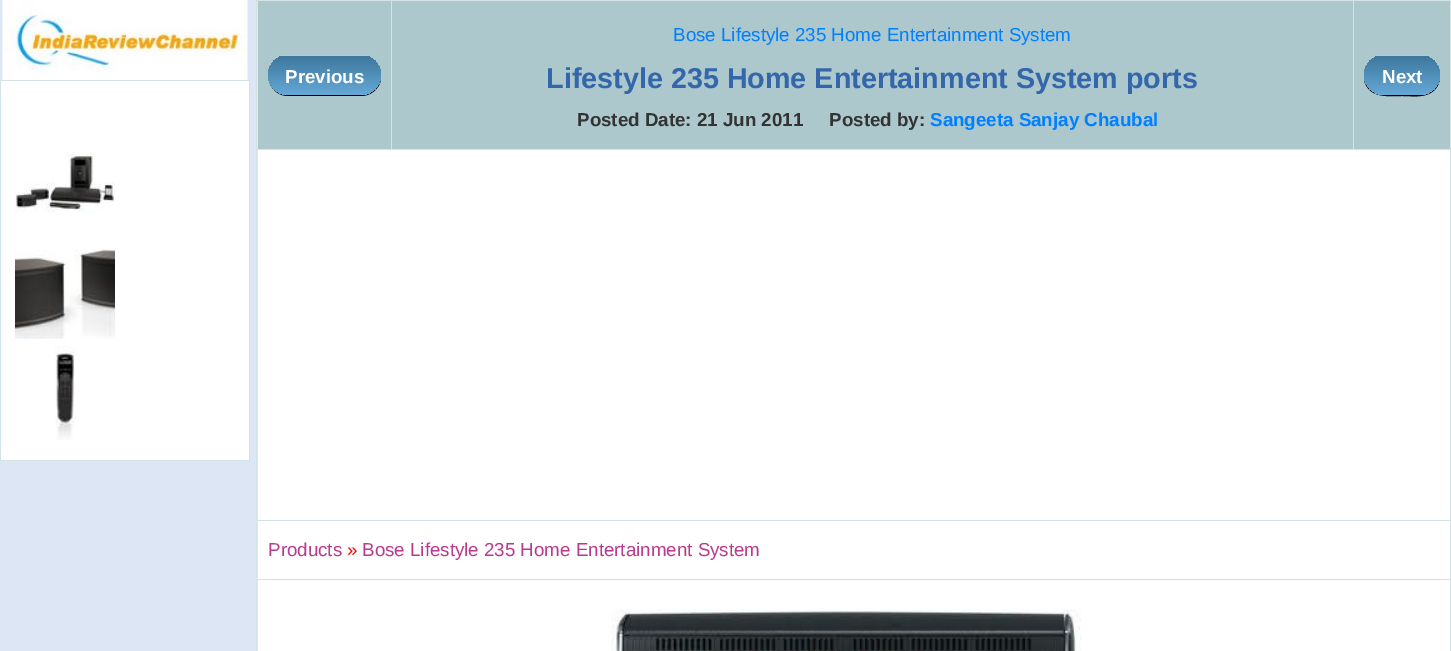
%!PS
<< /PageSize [1451 651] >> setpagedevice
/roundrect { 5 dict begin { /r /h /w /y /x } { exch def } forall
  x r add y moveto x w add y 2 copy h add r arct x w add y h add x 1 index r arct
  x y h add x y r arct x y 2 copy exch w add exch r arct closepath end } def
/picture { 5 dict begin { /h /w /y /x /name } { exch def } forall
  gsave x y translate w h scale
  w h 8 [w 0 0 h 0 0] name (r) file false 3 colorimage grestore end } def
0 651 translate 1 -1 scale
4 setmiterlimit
0.863 0.902 0.957 setrgbcolor
0 0 1451 651 rectfill
(img1.rgb) 2 0 246 80 picture
1 setgray
1 81 248 379 rectfill
0.831 0.89 0.898 setrgbcolor
0 80 250 1 rectfill
249 80 1 381 rectfill
0 460 250 1 rectfill
0 80 1 381 rectfill
(img2.rgb) 15 152 100 61 picture
(img3.rgb) 15 249 100 90 picture
(img4.rgb) 55 346 20 94 picture
0.675 0.784 0.8 setrgbcolor
258 1 1095 148 rectfill
0.831 0.89 0.898 setrgbcolor
1353 0 98 1 rectfill
256 149 1195 1 rectfill
1353 0 1 150 rectfill
391 0 963 1 rectfill
391 0 1 150 rectfill
256 0 137 1 rectfill
256 520 1195 1 rectfill
256 579 1195 1 rectfill
256 579 1 72 rectfill
256 520 1 60 rectfill
256 149 1 372 rectfill
256 0 1 150 rectfill
0 setgray
newpath 270 84 moveto 273 91 280 96 288 96 curveto 361 96 lineto 371 96 379 89 381 80 curveto 378 89 370 95 361 95 curveto 288 95 lineto 280 95 273 91 270 84 curveto closepath fill
gsave
268 55 113 40 20 roundrect clip newpath
gsave newpath 268 56 moveto 381 56 lineto 381 75 lineto 381 86 372 95 361 95 curveto 288 95 lineto 277 95 268 86 268 75 curveto closepath clip newpath
<< /ShadingType 2 /ColorSpace /DeviceRGB /Coords [324 56 324 95] /Extend [true true] /Function << /FunctionType 2 /Domain [0 1] /C0 [0.243 0.467 0.616] /C1 [0.396 0.663 0.843] /N 1 >> >> shfill grestore
grestore
/LiberationSans-Bold [18.75 0 0 -18.75 0 0] selectfont
1 setgray
285 83 moveto (Previous) show
0.588 0.82 0.973 setrgbcolor
278 55 93 1 rectfill
/LiberationSans-Regular [18.75 0 0 -18.75 0 0] selectfont
0 0.502 1 setrgbcolor
673 41 moveto (Bose Lifestyle 235 Home Entertainment System) show
/LiberationSans-Bold [28.75 0 0 -28.75 0 0] selectfont
0.2 0.4 0.667 setrgbcolor
546 88 moveto (Lifestyle 235 Home Entertainment System ports) show
/LiberationSans-Bold [18.75 0 0 -18.75 0 0] selectfont
0.2 setgray
577 126 moveto (Posted Date: 21 Jun 2011     Posted by:) show
0 0.502 1 setrgbcolor
930 126 moveto (Sangeeta Sanjay Chaubal) show
0.675 0.784 0.8 setrgbcolor
1354 1 96 148 rectfill
0.831 0.89 0.898 setrgbcolor
1450 579 1 72 rectfill
1450 520 1 60 rectfill
1450 149 1 372 rectfill
1450 0 1 150 rectfill
0 setgray
newpath 1364 80 moveto 1369 99 1388 96 1402 96 curveto 1414 96 1429 99 1437 87 curveto 1439 84 1440 80 1440 76 curveto 1440 86 1431 95 1420 95 curveto 1384 95 lineto 1375 95 1367 89 1364 80 curveto closepath fill
gsave
1364 55 76 40 20 roundrect clip newpath
gsave newpath 1364 56 moveto 1440 56 lineto 1440 75 lineto 1440 86 1431 95 1420 95 curveto 1384 95 lineto 1373 95 1364 86 1364 75 curveto closepath clip newpath
<< /ShadingType 2 /ColorSpace /DeviceRGB /Coords [1402 56 1402 95] /Extend [true true] /Function << /FunctionType 2 /Domain [0 1] /C0 [0.243 0.467 0.616] /C1 [0.396 0.663 0.843] /N 1 >> >> shfill grestore
grestore
1 setgray
1382 83 moveto (Next) show
0.588 0.82 0.973 setrgbcolor
1374 55 56 1 rectfill
1 setgray
258 150 1192 370 rectfill
258 521 1192 58 rectfill
/LiberationSans-Regular [18.75 0 0 -18.75 0 0] selectfont
0.725 0.231 0.561 setrgbcolor
268 556 moveto (Products) show
1 0 0 setrgbcolor
347 556 moveto (») show
0.725 0.231 0.561 setrgbcolor
362 556 moveto (Bose Lifestyle 235 Home Entertainment System) show
1 setgray
258 580 1192 71 rectfill
(img5.rgb) 611 609 471 42 picture
showpage
